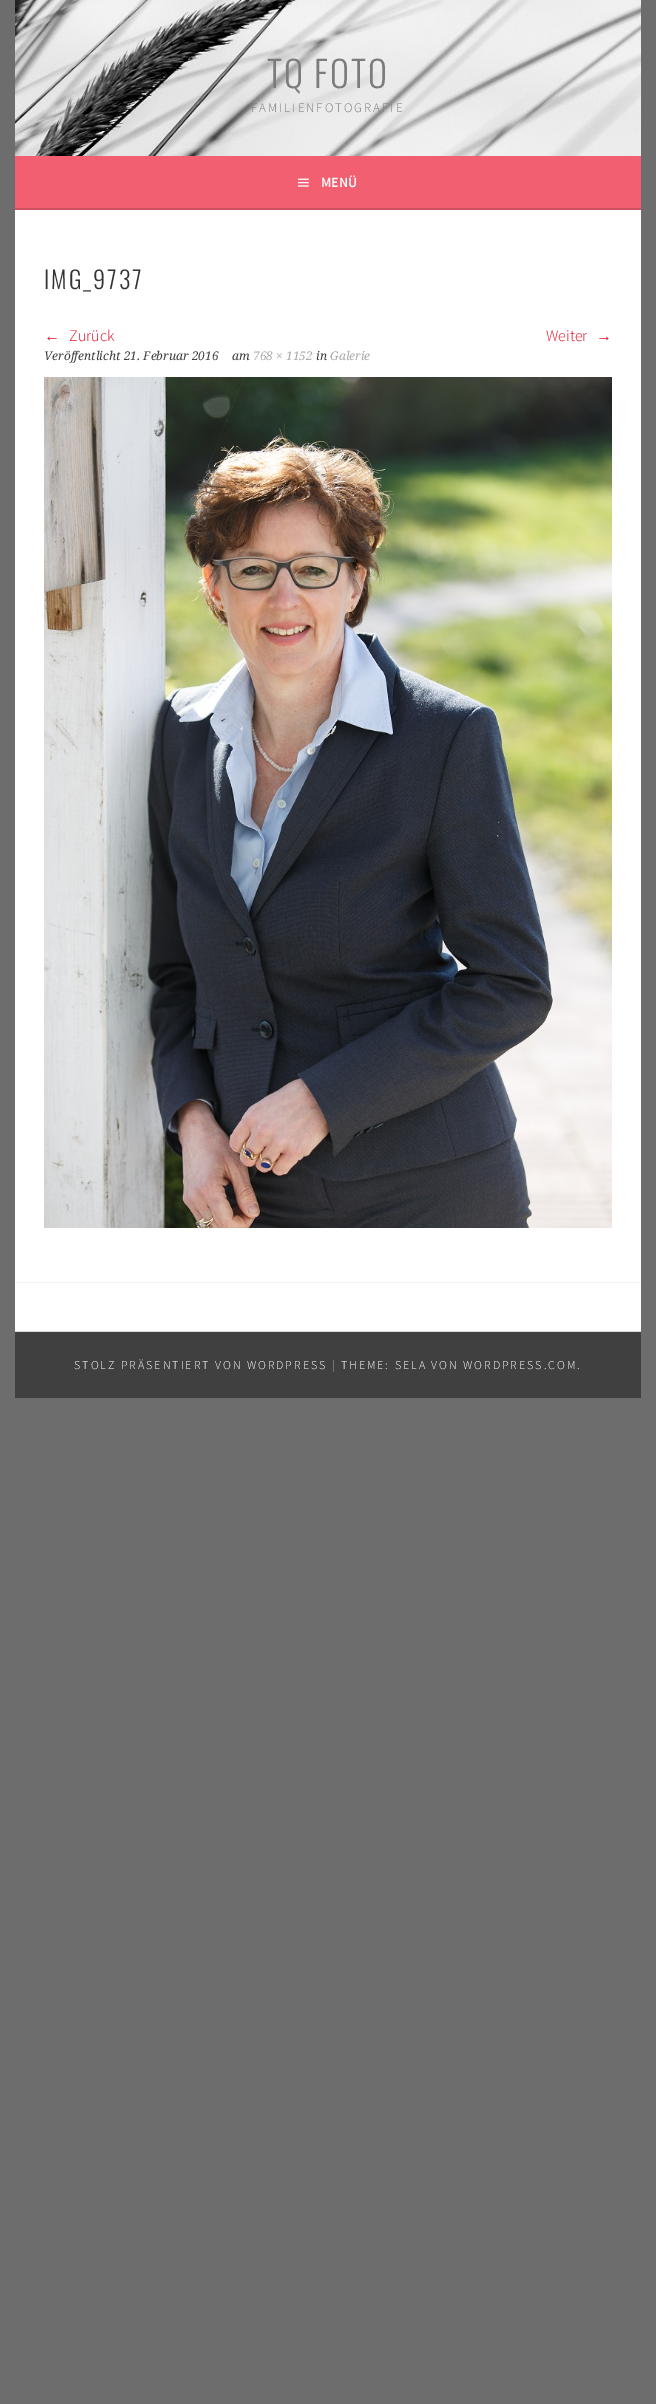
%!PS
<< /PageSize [656 2404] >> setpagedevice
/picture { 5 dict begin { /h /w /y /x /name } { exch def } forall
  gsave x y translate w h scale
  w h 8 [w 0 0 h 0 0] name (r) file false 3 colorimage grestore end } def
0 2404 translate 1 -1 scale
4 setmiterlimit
0.427 setgray
0 0 656 2404 rectfill
(img1.rgb) 15 0 626 156 picture
/Oswald-Light [36 0 0 -36 0 0] selectfont
0.486 setgray
267 88 moveto 2 0 (TQ FOTO) ashow
/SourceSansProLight-Light [13 0 0 -13 0 0] selectfont
251 112 moveto 2 0 (FAMILIENFOTOGRAFIE) ashow
0.949 0.373 0.439 setrgbcolor
15 156 626 52 rectfill
0.808 0.318 0.373 setrgbcolor
15 208 626 2 rectfill
(img2.rgb) 298 178 11 9 picture
/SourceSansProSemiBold-SemiBold [14 0 0 -14 0 0] selectfont
1 setgray
321 187 moveto (MENÜ) show
15 210 626 1121 rectfill
/Oswald-Light [24 0 0 -24 0 0] selectfont
0.2 setgray
44 289 moveto 2 0 (IMG_9737) ashow
/LiberationSans-Regular [16 0 0 -16 0 0] selectfont
0.882 0.071 0.165 setrgbcolor
44 341 moveto (←) show
/SourceSansProLight-Light [16 0 0 -16 0 0] selectfont
69 341 moveto (Zurück) show
546 341 moveto (Weiter) show
/LiberationSans-Regular [16 0 0 -16 0 0] selectfont
596 341 moveto (→) show
/DroidSerif-Italic [12 0 0 -12 0 0] selectfont
0.251 setgray
44 360 moveto (Veröffentlicht 21. Februar 2016) show
232 360 moveto (am) show
0.667 setgray
253 360 moveto (768 × 1152) show
0.251 setgray
316 360 moveto (in) show
0.667 setgray
330 360 moveto (Galerie) show
(img3.rgb) 44 377 568 851 picture
0.949 setgray
16 1282 625 1 rectfill
0.251 setgray
15 1332 626 66 rectfill
0.851 setgray
15 1331 626 1 rectfill
/SourceSansProLight-Light [12 0 0 -12 0 0] selectfont
1 setgray
74 1369 moveto 2 0 (STOLZ PRÄSENTIERT VON WORDPRESS | THEME: SELA VON WORDPRESS.COM.) ashow
showpage
